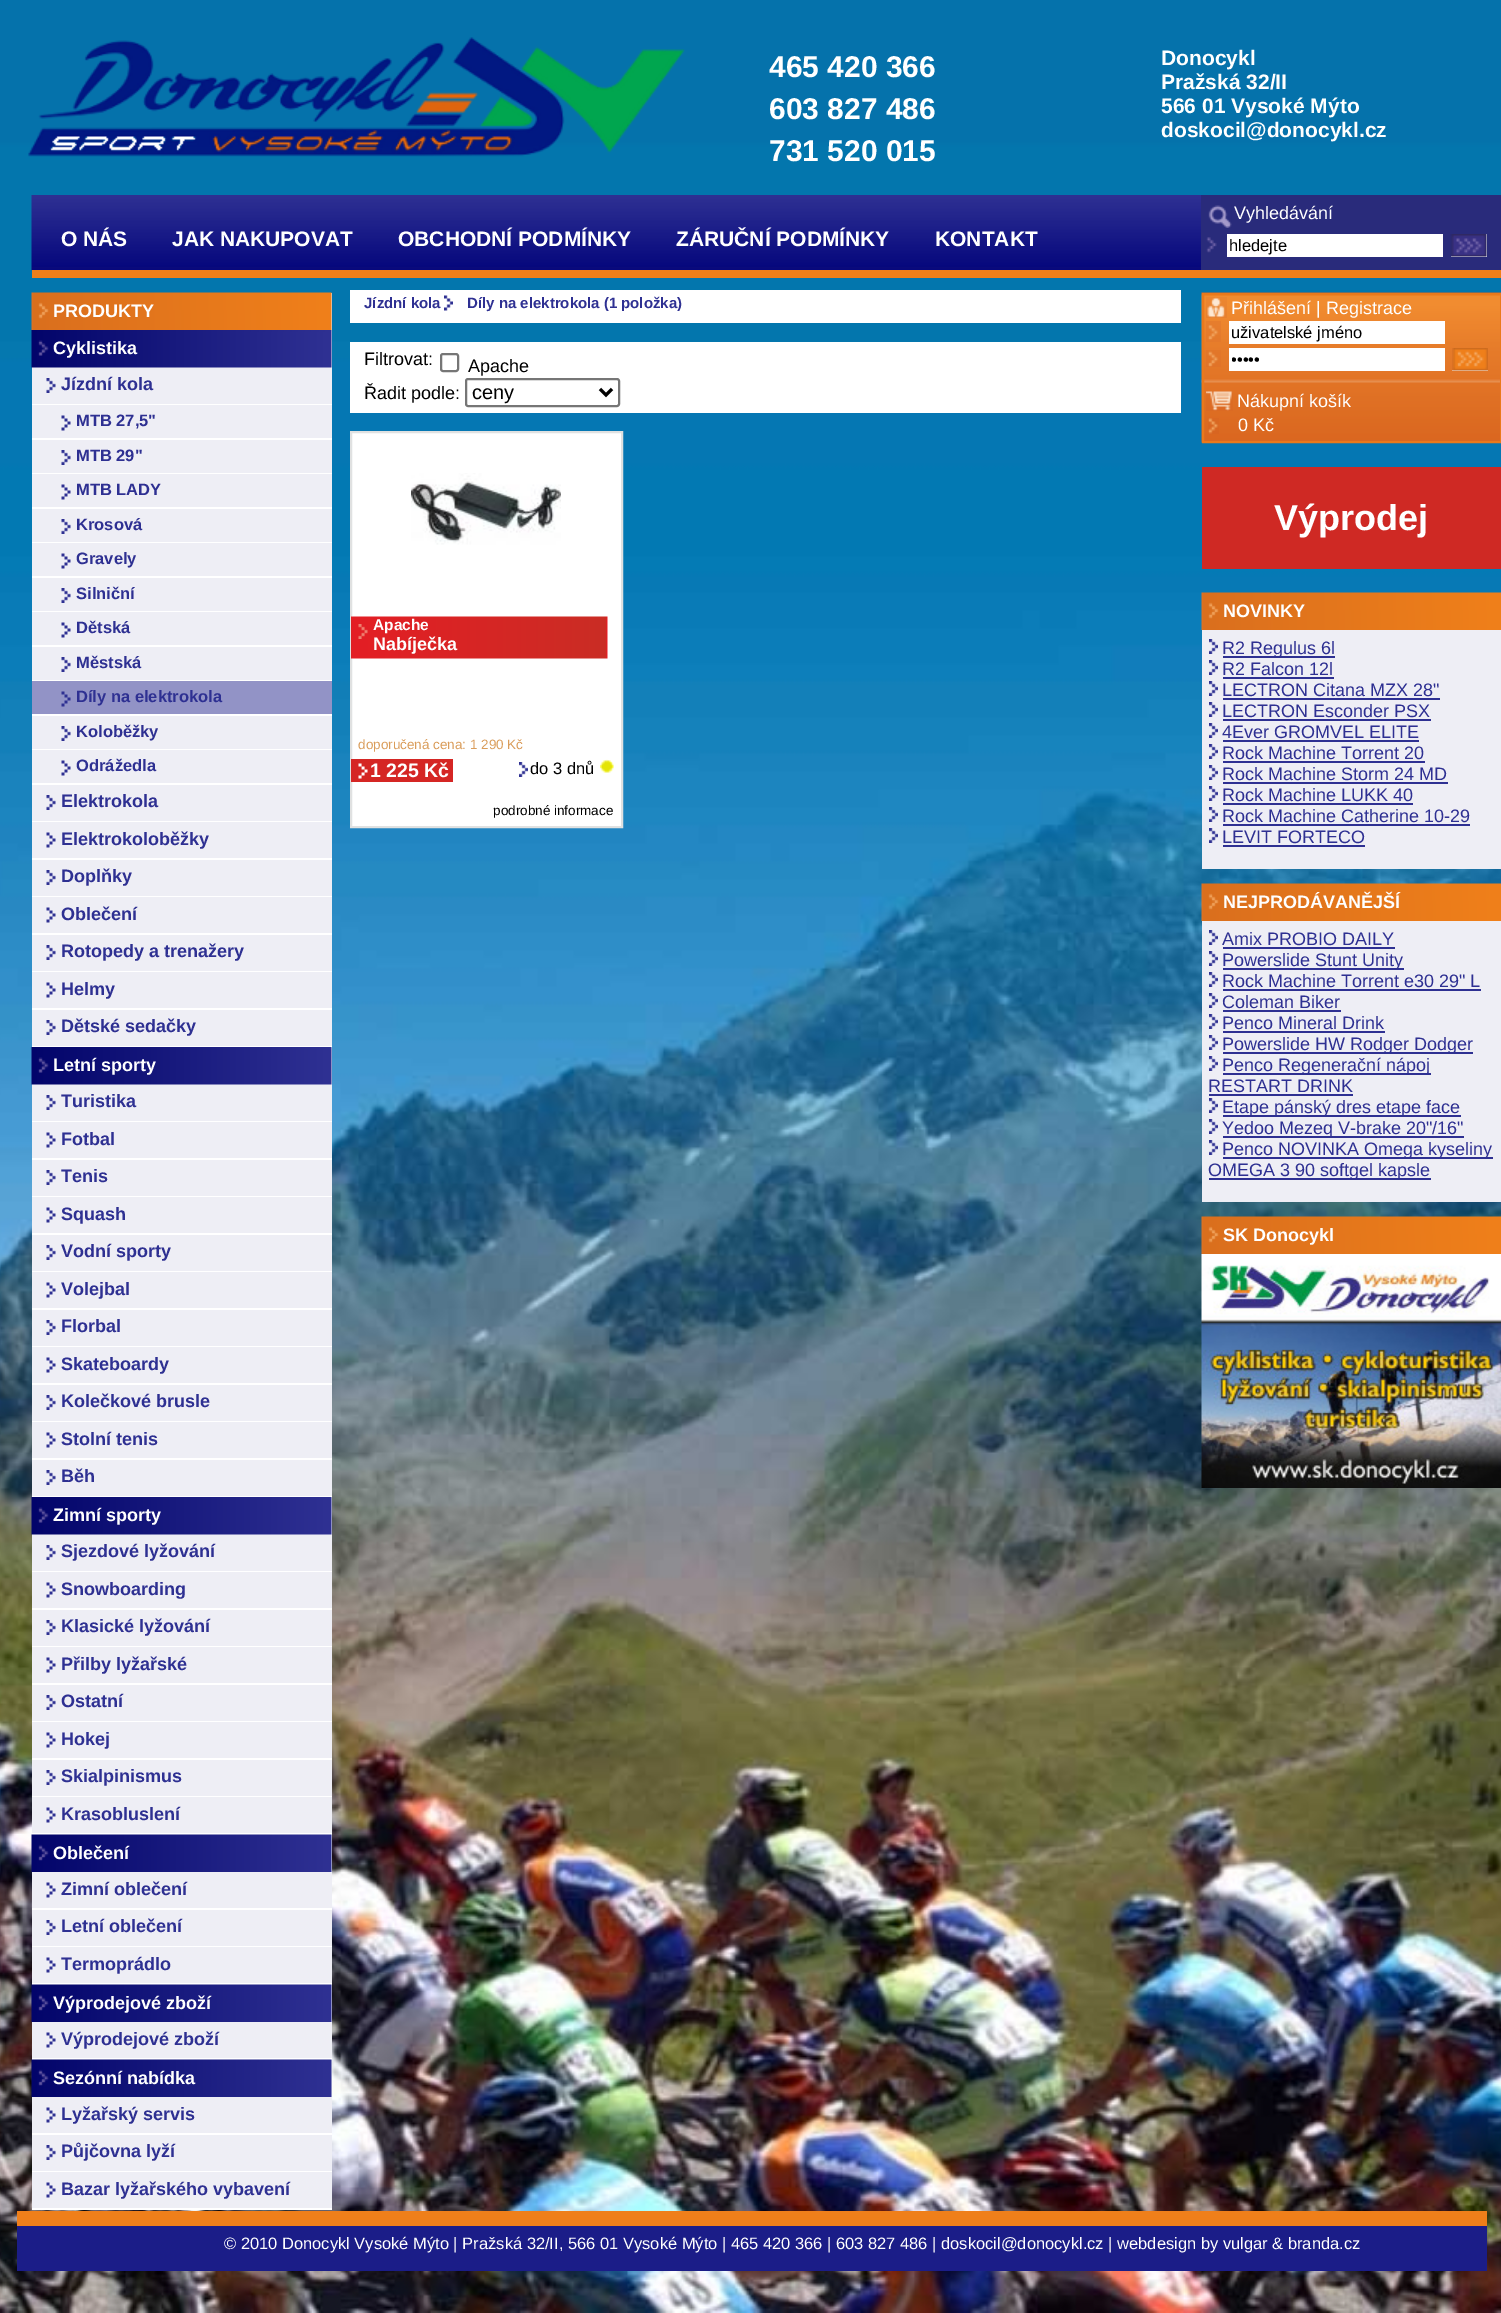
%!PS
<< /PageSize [1501 2313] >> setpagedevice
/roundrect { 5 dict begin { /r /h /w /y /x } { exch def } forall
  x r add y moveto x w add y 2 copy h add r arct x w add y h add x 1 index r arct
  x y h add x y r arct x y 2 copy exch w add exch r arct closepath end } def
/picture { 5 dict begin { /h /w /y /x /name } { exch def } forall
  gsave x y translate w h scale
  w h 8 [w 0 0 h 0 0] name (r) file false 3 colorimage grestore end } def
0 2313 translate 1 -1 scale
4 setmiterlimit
1 setgray
0 0 1501 2313 rectfill
(img1.rgb) 0 0 1501 2313 picture
(img2.rgb) 28 37 657 120 picture
/LiberationSans-Bold [30 0 0 -30 0 0] selectfont
769 77 moveto (465 420 366) show
769 119 moveto (603 827 486) show
769 161 moveto (731 520 015) show
/LiberationSans-Bold [21 0 0 -21 0 0] selectfont
1161 65 moveto (Donocykl) show
1161 89 moveto (Pražská 32/II) show
1161 113 moveto (566 01 Vysoké Mýto) show
1161 137 moveto (doskocil@donocykl.cz) show
(img3.rgb) 31 195 1170 75 picture
0.937 0.498 0.102 setrgbcolor
32 270 1469 8 rectfill
1 setgray
61 246 moveto (O NÁS) show
172 246 moveto (JAK NAKUPOVAT) show
398 246 moveto (OBCHODNÍ PODMÍNKY) show
676 246 moveto (ZÁRUČNÍ PODMÍNKY) show
935 246 moveto (KONTAKT) show
0.161 0.169 0.482 setrgbcolor
1201 195 300 75 rectfill
(img4.rgb) 1208 205 24 23 picture
/LiberationSans-Regular [18 0 0 -18 0 0] selectfont
1 setgray
1234 219 moveto (Vyhledávání) show
(img5.rgb) 1206 237 11 16 picture
1227 234 216 23 rectfill
/LiberationSans-Regular [16.5 0 0 -16.5 0 0] selectfont
0 setgray
1229 251 moveto (hledejte) show
0.937 setgray
1451 234 36 23 rectfill
(img6.rgb) 1450 234 37 23 picture
0.933 0.933 0.961 setrgbcolor
32 293 300 1878 rectfill
(img7.rgb) 31 292 301 38 picture
/LiberationSans-Bold [18 0 0 -18 0 0] selectfont
1 setgray
53 317 moveto (PRODUKTY) show
(img8.rgb) 31 330 301 38 picture
53 354 moveto (Cyklistika) show
(img9.rgb) 46 378 10 15 picture
32 404 300 1 rectfill
0.18 0.188 0.573 setrgbcolor
61 390 moveto (Jízdní kola) show
(img10.rgb) 61 415 10 16 picture
1 setgray
32 438 300 2 rectfill
/LiberationSans-Bold [16.5 0 0 -16.5 0 0] selectfont
0.18 0.188 0.573 setrgbcolor
76 426 moveto (MTB 27,5") show
(img9.rgb) 61 450 10 15 picture
1 setgray
32 473 300 1 rectfill
0.18 0.188 0.573 setrgbcolor
76 461 moveto (MTB 29") show
(img10.rgb) 61 484 10 16 picture
1 setgray
32 507 300 2 rectfill
0.18 0.188 0.573 setrgbcolor
76 495 moveto (MTB LADY) show
(img9.rgb) 61 519 10 15 picture
1 setgray
32 542 300 1 rectfill
0.18 0.188 0.573 setrgbcolor
76 530 moveto (Krosová) show
(img10.rgb) 61 553 10 16 picture
1 setgray
32 576 300 2 rectfill
0.18 0.188 0.573 setrgbcolor
76 564 moveto (Gravely) show
(img9.rgb) 61 588 10 15 picture
1 setgray
32 611 300 1 rectfill
0.18 0.188 0.573 setrgbcolor
76 599 moveto (Silniční) show
(img10.rgb) 61 622 10 16 picture
1 setgray
32 645 300 2 rectfill
0.18 0.188 0.573 setrgbcolor
76 633 moveto (Dětská) show
(img9.rgb) 61 657 10 15 picture
1 setgray
32 680 300 1 rectfill
0.18 0.188 0.573 setrgbcolor
76 668 moveto (Městská) show
0.573 0.576 0.776 setrgbcolor
32 681 300 33 rectfill
(img11.rgb) 61 691 10 16 picture
1 setgray
32 714 300 2 rectfill
0.18 0.188 0.573 setrgbcolor
76 702 moveto (Díly na elektrokola) show
(img9.rgb) 61 726 10 15 picture
1 setgray
32 749 300 1 rectfill
0.18 0.188 0.573 setrgbcolor
76 737 moveto (Koloběžky) show
(img10.rgb) 61 760 10 16 picture
1 setgray
32 783 300 2 rectfill
0.18 0.188 0.573 setrgbcolor
76 771 moveto (Odrážedla) show
(img9.rgb) 46 795 10 15 picture
1 setgray
32 821 300 1 rectfill
/LiberationSans-Bold [18 0 0 -18 0 0] selectfont
0.18 0.188 0.573 setrgbcolor
61 807 moveto (Elektrokola) show
(img10.rgb) 46 832 10 16 picture
1 setgray
32 858 300 2 rectfill
0.18 0.188 0.573 setrgbcolor
61 845 moveto (Elektrokoloběžky) show
(img9.rgb) 46 870 10 15 picture
1 setgray
32 896 300 1 rectfill
0.18 0.188 0.573 setrgbcolor
61 882 moveto (Doplňky) show
(img10.rgb) 46 907 10 16 picture
1 setgray
32 933 300 2 rectfill
0.18 0.188 0.573 setrgbcolor
61 920 moveto (Oblečení) show
(img9.rgb) 46 945 10 15 picture
1 setgray
32 971 300 1 rectfill
0.18 0.188 0.573 setrgbcolor
61 957 moveto (Rotopedy a trenažery) show
(img10.rgb) 46 982 10 16 picture
1 setgray
32 1008 300 2 rectfill
0.18 0.188 0.573 setrgbcolor
61 995 moveto (Helmy) show
(img9.rgb) 46 1020 10 15 picture
1 setgray
32 1046 300 2 rectfill
0.18 0.188 0.573 setrgbcolor
61 1032 moveto (Dětské sedačky) show
(img12.rgb) 31 1047 301 38 picture
1 setgray
53 1071 moveto (Letní sporty) show
(img9.rgb) 46 1095 10 15 picture
32 1121 300 1 rectfill
0.18 0.188 0.573 setrgbcolor
61 1107 moveto (Turistika) show
(img10.rgb) 46 1132 10 16 picture
1 setgray
32 1158 300 2 rectfill
0.18 0.188 0.573 setrgbcolor
61 1145 moveto (Fotbal) show
(img9.rgb) 46 1170 10 15 picture
1 setgray
32 1196 300 1 rectfill
0.18 0.188 0.573 setrgbcolor
61 1182 moveto (Tenis) show
(img10.rgb) 46 1207 10 16 picture
1 setgray
32 1233 300 2 rectfill
0.18 0.188 0.573 setrgbcolor
61 1220 moveto (Squash) show
(img9.rgb) 46 1245 10 15 picture
1 setgray
32 1271 300 1 rectfill
0.18 0.188 0.573 setrgbcolor
61 1257 moveto (Vodní sporty) show
(img10.rgb) 46 1282 10 16 picture
1 setgray
32 1308 300 2 rectfill
0.18 0.188 0.573 setrgbcolor
61 1295 moveto (Volejbal) show
(img9.rgb) 46 1320 10 15 picture
1 setgray
32 1346 300 1 rectfill
0.18 0.188 0.573 setrgbcolor
61 1332 moveto (Florbal) show
(img10.rgb) 46 1357 10 16 picture
1 setgray
32 1383 300 2 rectfill
0.18 0.188 0.573 setrgbcolor
61 1370 moveto (Skateboardy) show
(img9.rgb) 46 1395 10 15 picture
1 setgray
32 1421 300 1 rectfill
0.18 0.188 0.573 setrgbcolor
61 1407 moveto (Kolečkové brusle) show
(img10.rgb) 46 1432 10 16 picture
1 setgray
32 1458 300 2 rectfill
0.18 0.188 0.573 setrgbcolor
61 1445 moveto (Stolní tenis) show
(img9.rgb) 46 1470 10 15 picture
1 setgray
32 1496 300 2 rectfill
0.18 0.188 0.573 setrgbcolor
61 1482 moveto (Běh) show
(img13.rgb) 31 1497 301 38 picture
1 setgray
53 1521 moveto (Zimní sporty) show
(img9.rgb) 46 1545 10 15 picture
32 1571 300 1 rectfill
0.18 0.188 0.573 setrgbcolor
61 1557 moveto (Sjezdové lyžování) show
(img10.rgb) 46 1582 10 16 picture
1 setgray
32 1608 300 2 rectfill
0.18 0.188 0.573 setrgbcolor
61 1595 moveto (Snowboarding) show
(img9.rgb) 46 1620 10 15 picture
1 setgray
32 1646 300 1 rectfill
0.18 0.188 0.573 setrgbcolor
61 1632 moveto (Klasické lyžování) show
(img10.rgb) 46 1657 10 16 picture
1 setgray
32 1683 300 2 rectfill
0.18 0.188 0.573 setrgbcolor
61 1670 moveto (Přilby lyžařské) show
(img9.rgb) 46 1695 10 15 picture
1 setgray
32 1721 300 1 rectfill
0.18 0.188 0.573 setrgbcolor
61 1707 moveto (Ostatní) show
(img10.rgb) 46 1732 10 16 picture
1 setgray
32 1758 300 2 rectfill
0.18 0.188 0.573 setrgbcolor
61 1745 moveto (Hokej) show
(img9.rgb) 46 1770 10 15 picture
1 setgray
32 1796 300 1 rectfill
0.18 0.188 0.573 setrgbcolor
61 1782 moveto (Skialpinismus) show
(img10.rgb) 46 1807 10 16 picture
1 setgray
32 1833 300 2 rectfill
0.18 0.188 0.573 setrgbcolor
61 1820 moveto (Krasobluslení) show
(img14.rgb) 31 1834 301 38 picture
1 setgray
53 1859 moveto (Oblečení) show
(img10.rgb) 46 1882 10 16 picture
32 1908 300 2 rectfill
0.18 0.188 0.573 setrgbcolor
61 1895 moveto (Zimní oblečení) show
(img9.rgb) 46 1920 10 15 picture
1 setgray
32 1946 300 1 rectfill
0.18 0.188 0.573 setrgbcolor
61 1932 moveto (Letní oblečení) show
(img10.rgb) 46 1957 10 16 picture
1 setgray
32 1983 300 2 rectfill
0.18 0.188 0.573 setrgbcolor
61 1970 moveto (Termoprádlo) show
(img15.rgb) 31 1984 301 38 picture
1 setgray
53 2009 moveto (Výprodejové zboží) show
(img10.rgb) 46 2032 10 16 picture
32 2058 300 2 rectfill
0.18 0.188 0.573 setrgbcolor
61 2045 moveto (Výprodejové zboží) show
(img16.rgb) 31 2059 301 38 picture
1 setgray
53 2084 moveto (Sezónní nabídka) show
(img10.rgb) 46 2107 10 16 picture
32 2133 300 2 rectfill
0.18 0.188 0.573 setrgbcolor
61 2120 moveto (Lyžařský servis) show
(img9.rgb) 46 2145 10 15 picture
1 setgray
32 2171 300 1 rectfill
0.18 0.188 0.573 setrgbcolor
61 2157 moveto (Půjčovna lyží) show
0.933 0.933 0.961 setrgbcolor
32 2172 300 36 rectfill
(img10.rgb) 46 2182 10 16 picture
1 setgray
32 2208 300 2 rectfill
0.18 0.188 0.573 setrgbcolor
61 2195 moveto (Bazar lyžařského vybavení) show
1 setgray
350 290 831 33 rectfill
/LiberationSans-Bold [15 0 0 -15 0 0] selectfont
0.18 0.188 0.573 setrgbcolor
364 308 moveto (Jízdní kola) show
(img17.rgb) 444 295 9 16 picture
467 308 moveto (Díly na elektrokola \(1 položka\)) show
1 setgray
350 342 831 71 rectfill
/LiberationSans-Regular [18 0 0 -18 0 0] selectfont
0 setgray
364 365 moveto (Filtrovat:) show
0.463 setgray
2 setlinewidth
441 354 17 17 2 roundrect stroke
0 setgray
468 372 moveto (Apache) show
364 399 moveto (Řadit podle:) show
0.463 setgray
466 379 153 27 2 roundrect stroke
0 setgray
3 setlinewidth
newpath 600 389 moveto 606 395 lineto 612 389 lineto stroke
/LiberationSans-Regular [20 0 0 -20 0 0] selectfont
472 399 moveto (ceny) show
1 setgray
newpath 351 432 moveto 622 432 lineto 622 827 lineto 351 827 lineto closepath gsave fill grestore
0.878 0.882 0.882 setrgbcolor
2 setlinewidth
stroke
(img18.rgb) 411 473 150 72 picture
(img19.rgb) 351 616 257 43 picture
(img20.rgb) 358 624 10 15 picture
/LiberationSans-Bold [15.5 0 0 -15.5 0 0] selectfont
1 setgray
373 630 moveto (Apache) show
/LiberationSans-Bold [18 0 0 -18 0 0] selectfont
373 650 moveto (Nabíječka) show
/LiberationSans-Regular [13.5 0 0 -13.5 0 0] selectfont
0.855 0.616 0.357 setrgbcolor
358 749 moveto (doporučená cena: 1 290 Kč) show
0.835 0.149 0.141 setrgbcolor
351 759 102 23 rectfill
(img21.rgb) 358 763 10 16 picture
/LiberationSans-Bold [19.5 0 0 -19.5 0 0] selectfont
1 setgray
370 777 moveto (1 225 Kč) show
(img22.rgb) 519 762 9 15 picture
/LiberationSans-Regular [16.5 0 0 -16.5 0 0] selectfont
0 setgray
530 774 moveto (do 3 dnů) show
(img23.rgb) 600 759 14 14 picture
/LiberationSans-Regular [13.5 0 0 -13.5 0 0] selectfont
493 815 moveto (podrobné informace) show
(img24.rgb) 1201 292 300 151 picture
0.918 0.475 0.106 setrgbcolor
1203 294 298 148 rectstroke
(img25.rgb) 1206 297 21 21 picture
/LiberationSans-Regular [18 0 0 -18 0 0] selectfont
1 setgray
1231 314 moveto (Přihlášení | Registrace) show
(img26.rgb) 1206 321 15 21 picture
1229 321 216 23 rectfill
gsave
1232 324 210 18 rectclip
/LiberationSans-Regular [16.5 0 0 -16.5 0 0] selectfont
0 setgray
1231 338 moveto (uživatelské jméno) show
grestore
(img27.rgb) 1206 350 15 17 picture
1229 348 216 23 rectfill
gsave
1232 351 210 18 rectclip
/LiberationSans-Regular [16.5 0 0 -16.5 0 0] selectfont
0 setgray
1231 365 moveto (•••••) show
grestore
0.937 setgray
1452 370 36 1 rectfill
(img28.rgb) 1452 348 36 23 picture
(img29.rgb) 1206 391 27 20 picture
1 setgray
1237 407 moveto (Nákupní košík) show
(img30.rgb) 1208 418 11 16 picture
1238 431 moveto (0 Kč) show
0.812 0.161 0.141 setrgbcolor
1202 467 299 102 rectfill
/LiberationSans-Bold [36 0 0 -36 0 0] selectfont
1 setgray
1274 530 moveto (Výprodej) show
(img31.rgb) 1201 592 300 38 picture
/LiberationSans-Bold [18 0 0 -18 0 0] selectfont
1223 617 moveto (NOVINKY) show
0.933 0.933 0.961 setrgbcolor
1202 630 299 239 rectfill
(img32.rgb) 1209 639 9 15 picture
0.18 0.188 0.573 setrgbcolor
1223 656 112 2 rectfill
/LiberationSans-Regular [18 0 0 -18 0 0] selectfont
1222 654 moveto (R2 Regulus 6l) show
(img32.rgb) 1209 660 9 15 picture
1222 675 moveto (R2 Falcon 12l) show
1223 677 111 2 rectfill
(img32.rgb) 1209 681 9 15 picture
1222 696 moveto (LECTRON Citana MZX 28") show
1223 698 217 2 rectfill
(img32.rgb) 1209 702 9 15 picture
1222 717 moveto (LECTRON Esconder PSX) show
1223 719 208 2 rectfill
(img32.rgb) 1209 723 9 15 picture
1222 738 moveto (4Ever GROMVEL ELITE) show
1223 740 196 2 rectfill
(img32.rgb) 1209 744 9 15 picture
1222 759 moveto (Rock Machine Torrent 20) show
1223 761 202 2 rectfill
(img32.rgb) 1209 765 9 15 picture
1222 780 moveto (Rock Machine Storm 24 MD) show
1223 782 225 2 rectfill
(img32.rgb) 1209 786 9 15 picture
1222 801 moveto (Rock Machine LUKK 40) show
1223 803 190 2 rectfill
(img32.rgb) 1209 807 9 15 picture
1222 822 moveto (Rock Machine Catherine 10-29) show
1223 824 247 2 rectfill
(img32.rgb) 1209 828 9 15 picture
1222 843 moveto (LEVIT FORTECO) show
1223 845 142 2 rectfill
(img33.rgb) 1201 883 300 38 picture
/LiberationSans-Bold [18 0 0 -18 0 0] selectfont
1 setgray
1223 908 moveto (NEJPRODÁVANĚJŠÍ) show
0.933 0.933 0.961 setrgbcolor
1202 921 299 281 rectfill
(img32.rgb) 1209 930 9 15 picture
/LiberationSans-Regular [18 0 0 -18 0 0] selectfont
0.18 0.188 0.573 setrgbcolor
1222 945 moveto (Amix PROBIO DAILY) show
1223 947 172 2 rectfill
(img32.rgb) 1209 951 9 15 picture
1223 968 181 2 rectfill
1222 966 moveto (Powerslide Stunt Unity) show
(img32.rgb) 1209 972 9 15 picture
1222 987 moveto (Rock Machine Torrent e30 29" L) show
1223 989 258 2 rectfill
(img32.rgb) 1209 993 9 15 picture
1222 1008 moveto (Coleman Biker) show
1223 1010 118 2 rectfill
(img32.rgb) 1209 1014 9 15 picture
1222 1029 moveto (Penco Mineral Drink) show
1223 1031 162 2 rectfill
(img32.rgb) 1209 1035 9 15 picture
1223 1052 250 2 rectfill
1222 1050 moveto (Powerslide HW Rodger Dodger) show
(img32.rgb) 1209 1056 9 15 picture
1223 1073 208 2 rectfill
1222 1071 moveto (Penco Regenerační nápoj) show
1208 1092 moveto (RESTART DRINK) show
1209 1094 144 2 rectfill
(img32.rgb) 1209 1098 9 15 picture
1223 1115 238 2 rectfill
1222 1113 moveto (Etape pánský dres etape face) show
(img32.rgb) 1209 1119 9 15 picture
1223 1136 241 2 rectfill
1222 1134 moveto (Yedoo Mezeq V-brake 20"/16") show
(img32.rgb) 1209 1140 9 15 picture
1223 1157 270 2 rectfill
1222 1155 moveto (Penco NOVINKA Omega kyseliny) show
1209 1178 222 2 rectfill
1208 1176 moveto (OMEGA 3 90 softgel kapsle) show
(img34.rgb) 1201 1216 300 38 picture
/LiberationSans-Bold [18 0 0 -18 0 0] selectfont
1 setgray
1223 1241 moveto (SK Donocykl) show
(img35.rgb) 1201 1254 300 234 picture
0.106 0.114 0.533 setrgbcolor
17 2226 1470 45 rectfill
0.937 0.498 0.102 setrgbcolor
17 2211 1470 15 rectfill
/LiberationSans-Regular [16.5 0 0 -16.5 0 0] selectfont
1 setgray
224 2249 moveto (© 2010 Donocykl Vysoké Mýto | Pražská 32/II, 566 01 Vysoké Mýto | 465 420 366 | 603 827 486 | doskocil@donocykl.cz | webdesign by vulgar & branda.cz) show
showpage
